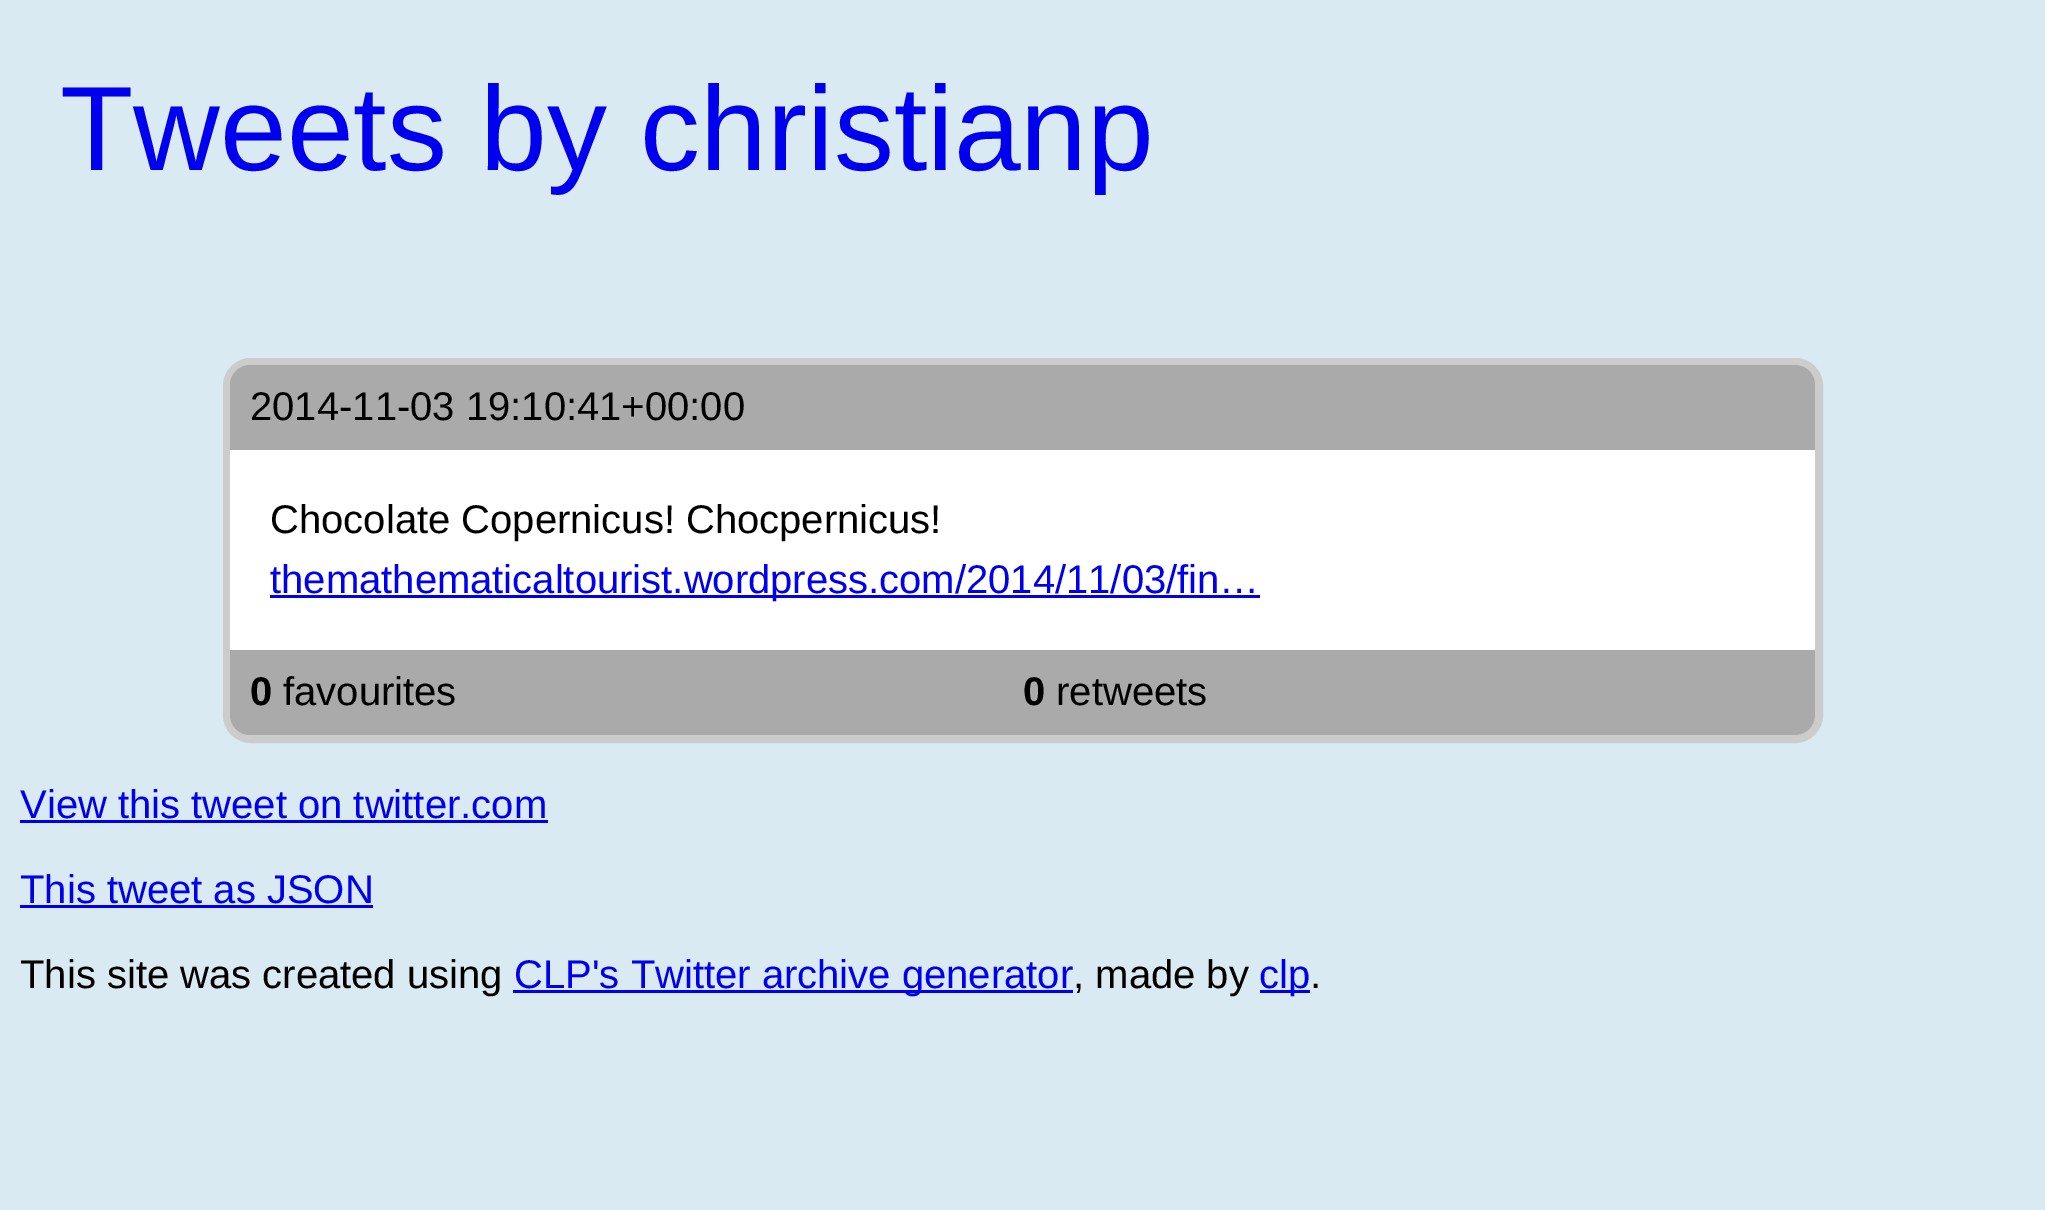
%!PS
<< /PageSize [2045 1210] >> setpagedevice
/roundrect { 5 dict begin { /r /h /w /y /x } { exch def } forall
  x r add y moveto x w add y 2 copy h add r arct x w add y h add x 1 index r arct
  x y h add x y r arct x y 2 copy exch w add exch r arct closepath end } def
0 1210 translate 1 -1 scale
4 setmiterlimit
0.851 0.918 0.949 setrgbcolor
0 0 2045 1210 rectfill
/LiberationSans-Regular [120 0 0 -120 0 0] selectfont
0 0 0.933 setrgbcolor
60 170 moveto (Tweets by christianp) show
0.8 setgray
8 setlinewidth
227 362 1592 377 24 roundrect stroke
0.667 setgray
newpath 250 365 moveto 1795 365 lineto 1806 365 1815 374 1815 385 curveto 1815 450 lineto 230 450 lineto 230 385 lineto 230 374 239 365 250 365 curveto closepath fill
/LiberationSans-Regular [40 0 0 -40 0 0] selectfont
0 setgray
250 420 moveto (2014-11-03 19:10:41+00:00) show
1 setgray
230 450 1585 200 rectfill
0 setgray
270 533 moveto (Chocolate Copernicus! Chocpernicus!) show
0 0 0.933 setrgbcolor
270 595 990 3 rectfill
270 593 moveto (themathematicaltourist.wordpress.com/2014/11/03/fin…) show
0.667 setgray
newpath 230 650 moveto 1815 650 lineto 1815 715 lineto 1815 726 1806 735 1795 735 curveto 250 735 lineto 239 735 230 726 230 715 curveto closepath fill
/LiberationSans-Bold [40 0 0 -40 0 0] selectfont
0 setgray
250 705 moveto (0) show
/LiberationSans-Regular [40 0 0 -40 0 0] selectfont
283 705 moveto (favourites) show
/LiberationSans-Bold [40 0 0 -40 0 0] selectfont
1023 705 moveto (0) show
/LiberationSans-Regular [40 0 0 -40 0 0] selectfont
1056 705 moveto (retweets) show
0 0 0.933 setrgbcolor
20 818 moveto (View this tweet on twitter.com) show
20 820 528 3 rectfill
20 903 moveto (This tweet as JSON) show
20 905 353 3 rectfill
0 setgray
20 988 moveto (This site was created using) show
0 0 0.933 setrgbcolor
513 990 560 3 rectfill
514 988 moveto (CLP's Twitter archive generator) show
0 setgray
1073 988 moveto (, made by) show
0 0 0.933 setrgbcolor
1260 990 50 3 rectfill
1259 988 moveto (clp) show
0 setgray
1310 988 moveto (.) show
showpage
